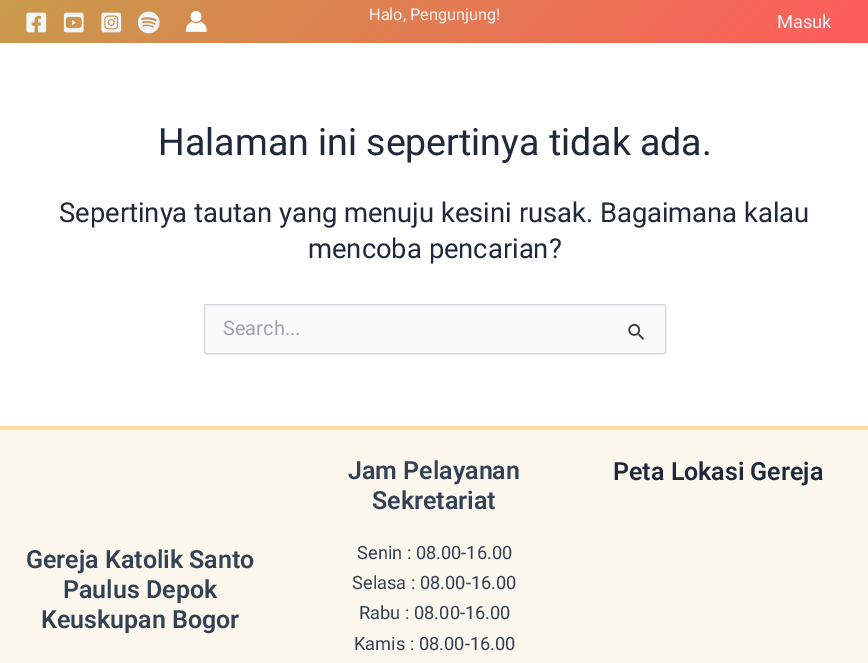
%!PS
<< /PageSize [868 663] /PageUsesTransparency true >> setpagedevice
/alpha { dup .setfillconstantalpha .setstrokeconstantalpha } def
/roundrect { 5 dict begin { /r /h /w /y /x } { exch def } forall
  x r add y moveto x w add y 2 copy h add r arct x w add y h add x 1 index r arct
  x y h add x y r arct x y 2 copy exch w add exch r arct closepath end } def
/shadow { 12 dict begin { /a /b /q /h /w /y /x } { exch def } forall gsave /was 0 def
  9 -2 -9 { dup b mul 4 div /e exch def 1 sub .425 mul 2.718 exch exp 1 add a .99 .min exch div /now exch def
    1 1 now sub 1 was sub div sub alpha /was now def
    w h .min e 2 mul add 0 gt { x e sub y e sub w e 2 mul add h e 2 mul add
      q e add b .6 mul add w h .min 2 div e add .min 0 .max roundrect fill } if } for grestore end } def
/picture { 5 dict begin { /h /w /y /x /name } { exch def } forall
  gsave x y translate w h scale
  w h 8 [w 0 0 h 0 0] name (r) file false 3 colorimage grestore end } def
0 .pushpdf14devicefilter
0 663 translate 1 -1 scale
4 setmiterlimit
1 setgray
0 0 868 663 rectfill
gsave newpath 0 0 moveto 868 0 lineto 868 43 lineto 0 43 lineto closepath clip newpath
<< /ShadingType 2 /ColorSpace /DeviceRGB /Coords [207 -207 662 249] /Extend [true true] /Function << /FunctionType 2 /Domain [0 1] /C0 [0.784 0.608 0.29] /C1 [1 0.361 0.361] /N 1 >> >> shfill grestore
(img1.rgb) 26 12 21 21 picture
(img2.rgb) 63 12 21 21 picture
(img3.rgb) 101 12 21 21 picture
(img4.rgb) 138 11 22 23 picture
(img5.rgb) 185 11 22 21 picture
/Roboto-Regular [16.25 0 0 -16.25 0 0] selectfont
0.941 0.961 0.98 setrgbcolor
369 20 moveto (Halo, Pengunjung!) show
/Roboto-Regular [18.25 0 0 -18.25 0 0] selectfont
777 28 moveto (Masuk) show
/Roboto-Regular [37.5 0 0 -37.5 0 0] selectfont
0.118 0.161 0.231 setrgbcolor
158 155 moveto (Halaman ini sepertinya tidak ada.) show
/Roboto-Regular [27.35 0 0 -27.35 0 0] selectfont
59 222 moveto (Sepertinya tautan yang menuju kesini rusak. Bagaimana kalau) show
308 258 moveto (mencoba pencarian?) show
0 setgray
204 305 462 50 2.5 1 0.05 shadow
0.98 setgray
204.5 304.5 461 49 2 roundrect gsave fill grestore
0.82 0.835 0.859 setrgbcolor
stroke
/Roboto-Regular [20 0 0 -20 0 0] selectfont
0.612 0.639 0.686 setrgbcolor
223 335 moveto (Search...) show
(img6.rgb) 628 324 17 16 picture
0.988 0.969 0.929 setrgbcolor
0 430 868 233 rectfill
1 0.867 0.631 setrgbcolor
0 426 868 4 rectfill
/Roboto-SemiBold [25 0 0 -25 0 0] selectfont
0.2 0.255 0.333 setrgbcolor
348 479 moveto (Jam Pelayanan) show
372 509 moveto (Sekretariat) show
/Roboto-Regular [18.25 0 0 -18.25 0 0] selectfont
357 559 moveto (Senin : 08.00-16.00) show
352 589 moveto (Selasa : 08.00-16.00) show
359 619 moveto (Rabu : 08.00-16.00) show
354 650 moveto (Kamis : 08.00-16.00) show
/Roboto-SemiBold [25 0 0 -25 0 0] selectfont
0.118 0.161 0.231 setrgbcolor
613 480 moveto (Peta Lokasi Gereja) show
0.2 0.255 0.333 setrgbcolor
26 568 moveto (Gereja Katolik Santo) show
63 598 moveto (Paulus Depok) show
41 628 moveto (Keuskupan Bogor) show
.poppdf14devicefilter showpage
